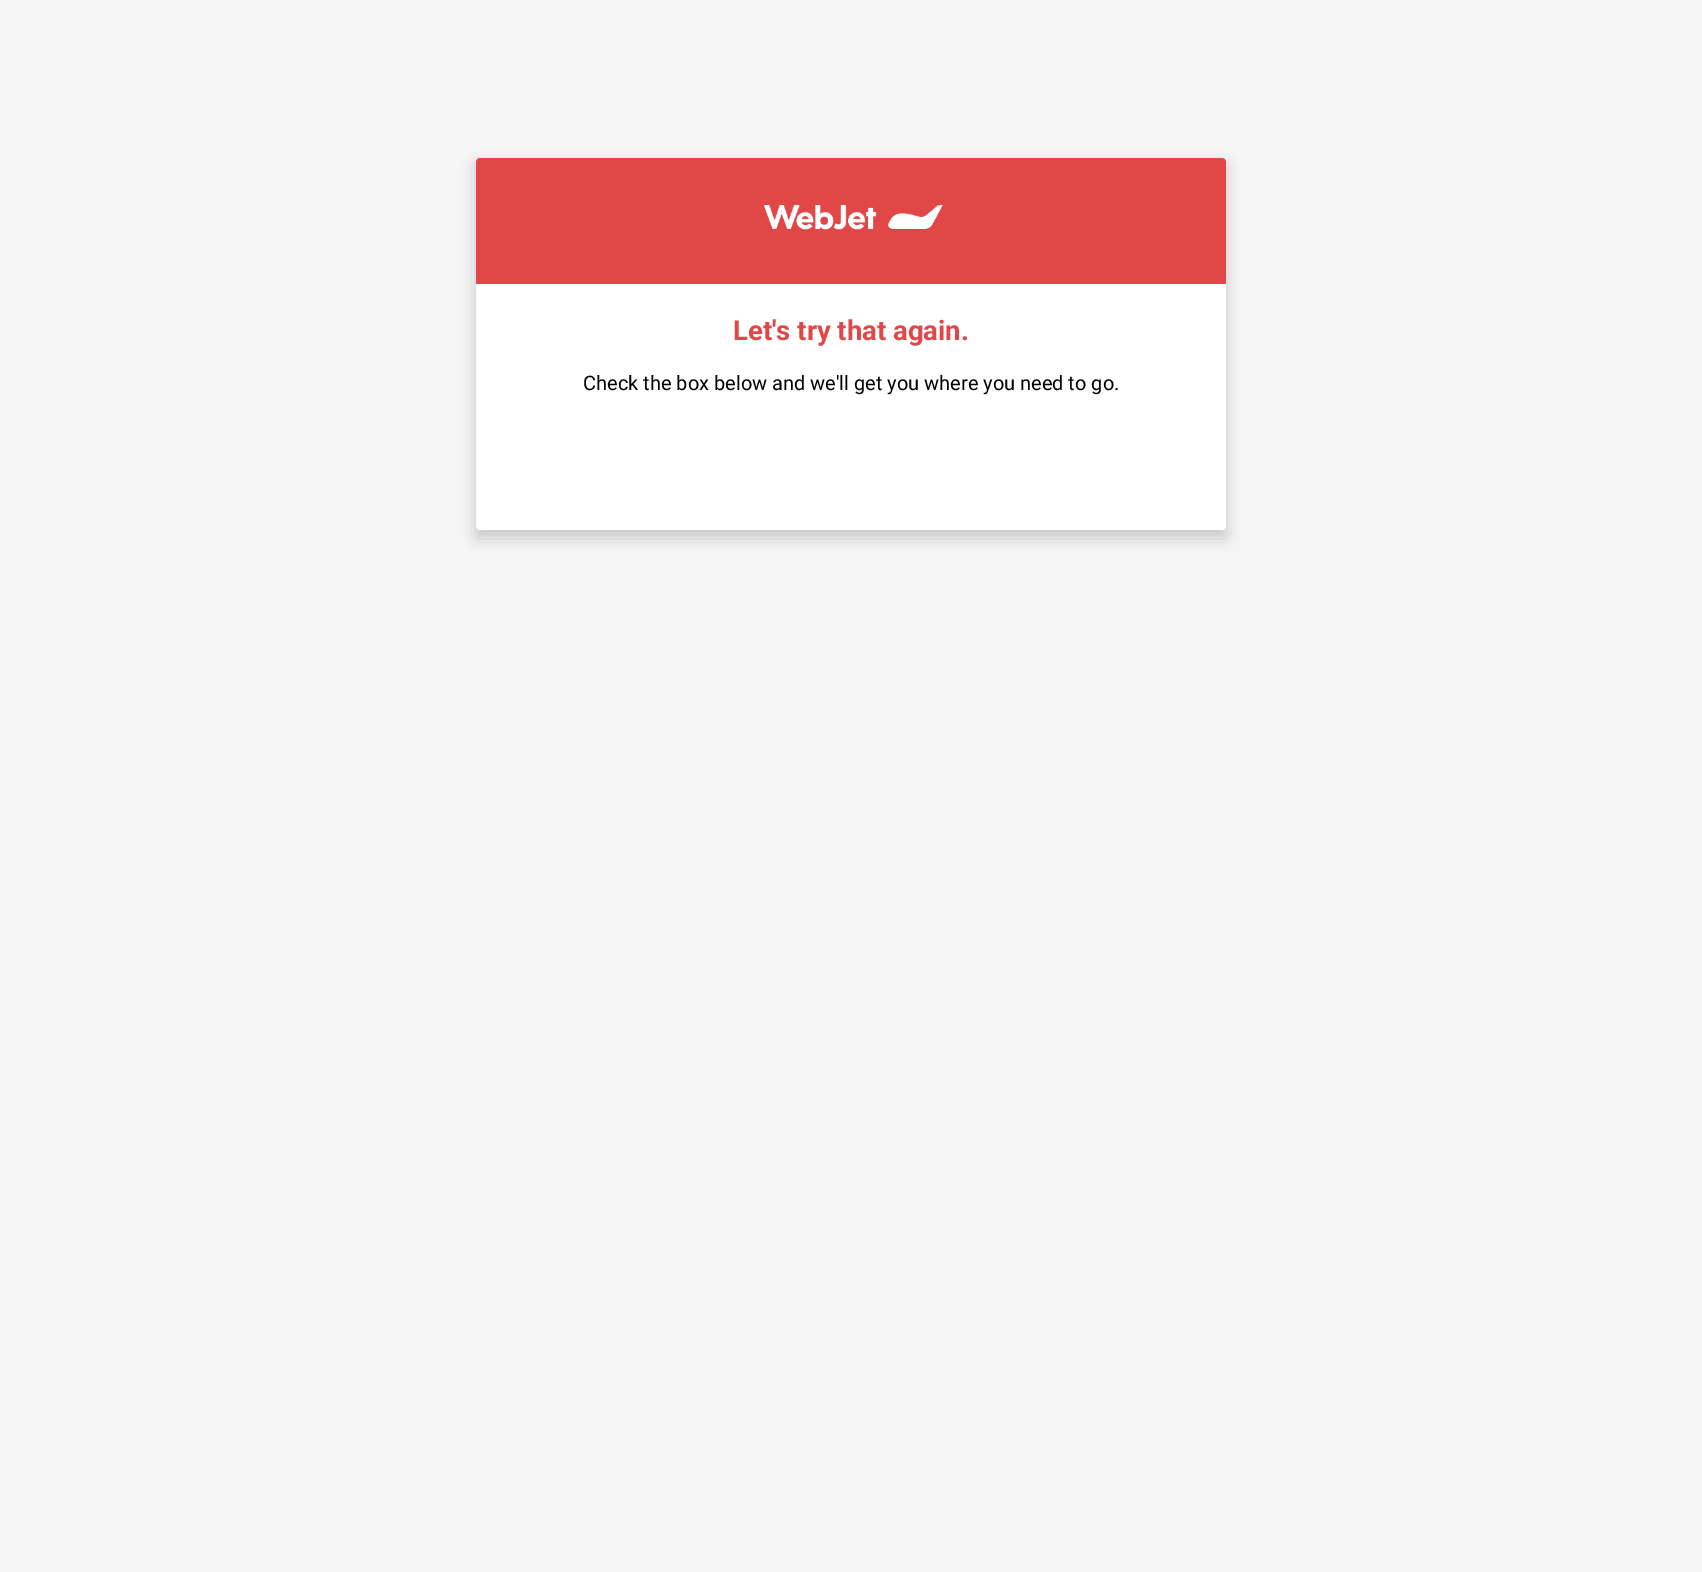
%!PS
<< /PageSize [1702 1572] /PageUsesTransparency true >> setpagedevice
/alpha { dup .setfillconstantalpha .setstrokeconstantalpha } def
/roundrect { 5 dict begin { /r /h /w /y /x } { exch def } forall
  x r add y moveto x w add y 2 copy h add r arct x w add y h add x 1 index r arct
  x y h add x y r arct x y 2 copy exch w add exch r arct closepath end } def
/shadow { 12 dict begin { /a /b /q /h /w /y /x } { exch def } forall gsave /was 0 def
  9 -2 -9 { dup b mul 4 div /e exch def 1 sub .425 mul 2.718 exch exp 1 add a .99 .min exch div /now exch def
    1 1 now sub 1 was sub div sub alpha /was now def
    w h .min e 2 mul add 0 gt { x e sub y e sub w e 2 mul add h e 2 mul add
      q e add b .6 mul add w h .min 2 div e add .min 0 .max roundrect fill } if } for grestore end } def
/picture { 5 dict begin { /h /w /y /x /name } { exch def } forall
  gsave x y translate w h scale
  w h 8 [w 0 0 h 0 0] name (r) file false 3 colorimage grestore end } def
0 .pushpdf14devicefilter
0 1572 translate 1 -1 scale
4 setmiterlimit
0.961 setgray
0 0 1702 1572 rectfill
0 setgray
476 165 750 373 0 7.5 0.18 shadow
0.886 0.278 0.278 setrgbcolor
newpath 480 158 moveto 1222 158 lineto 1224 158 1226 160 1226 162 curveto 1226 284 lineto 476 284 lineto 476 162 lineto 476 160 478 158 480 158 curveto closepath fill
(img1.rgb) 763 205 180 25 picture
1 setgray
newpath 476 284 moveto 1226 284 lineto 1226 526 lineto 1226 528 1224 530 1222 530 curveto 480 530 lineto 478 530 476 528 476 526 curveto closepath fill
/Roboto-Bold [27.5 0 0 -27.5 0 0] selectfont
0.886 0.278 0.278 setrgbcolor
733 340 moveto (Let's try that again.) show
/Roboto-Regular [20 0 0 -20 0 0] selectfont
0 setgray
583 390 moveto (Check the box below and we'll get you where you need to go.) show
.poppdf14devicefilter showpage
